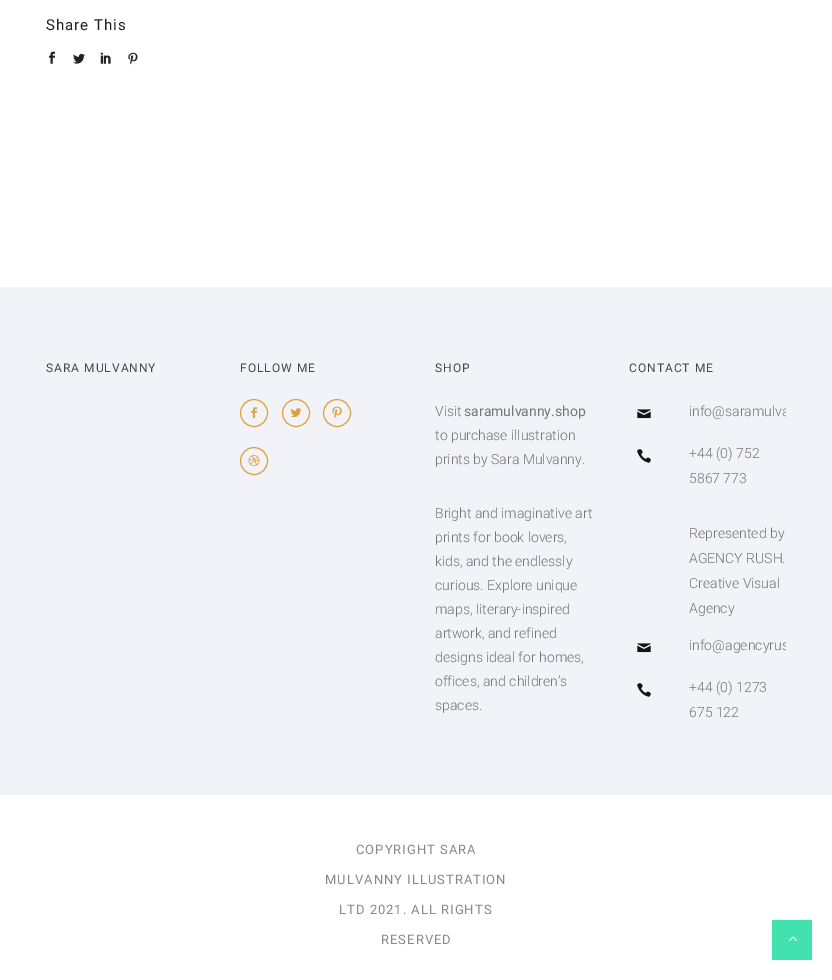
%!PS
<< /PageSize [832 980] >> setpagedevice
/picture { 5 dict begin { /h /w /y /x /name } { exch def } forall
  gsave x y translate w h scale
  w h 8 [w 0 0 h 0 0] name (r) file false 3 colorimage grestore end } def
0 980 translate 1 -1 scale
4 setmiterlimit
1 setgray
0 0 832 980 rectfill
/Roboto-Regular [15 0 0 -15 0 0] selectfont
0.133 setgray
46 30 moveto 1 0 (Share This) ashow
(img1.rgb) 49 51 7 13 picture
(img2.rgb) 73 53 12 11 picture
(img3.rgb) 100 52 11 12 picture
(img4.rgb) 128 52 10 13 picture
0.949 0.953 0.973 setrgbcolor
0 287 832 508 rectfill
/Roboto-Regular [12 0 0 -12 0 0] selectfont
0.278 setgray
46 372 moveto 1 0 (SARA MULVANNY) ashow
240 372 moveto 1 0 (FOLLOW ME) ashow
0.878 0.635 0.251 setrgbcolor
newpath 254 413 13.5 0 360 arc closepath stroke
(img5.rgb) 251 407 6 11 picture
newpath 296 413 13.5 0 360 arc closepath stroke
(img6.rgb) 290 408 12 10 picture
newpath 337 413 13.5 0 360 arc closepath stroke
(img7.rgb) 332 406 10 13 picture
newpath 254 461 13.5 0 360 arc closepath stroke
(img8.rgb) 248 455 12 12 picture
0.278 setgray
435 372 moveto 1 0 (SHOP) ashow
/Roboto-Light [14 0 0 -14 0 0] selectfont
0.459 setgray
435 416 moveto (Visit) show
/Roboto-Regular [14 0 0 -14 0 0] selectfont
464 416 moveto (saramulvanny.shop) show
/Roboto-Light [14 0 0 -14 0 0] selectfont
435 440 moveto (to purchase illustration) show
435 464 moveto (prints by Sara Mulvanny.) show
435 518 moveto (Bright and imaginative art) show
435 542 moveto (prints for book lovers,) show
435 566 moveto (kids, and the endlessly) show
435 590 moveto (curious. Explore unique) show
435 614 moveto (maps, literary-inspired) show
435 638 moveto (artwork, and refined) show
435 662 moveto (designs ideal for homes,) show
435 686 moveto (offices, and children’s) show
435 710 moveto (spaces.) show
/Roboto-Regular [12 0 0 -12 0 0] selectfont
0.278 setgray
629 372 moveto 1 0 (CONTACT ME) ashow
(img9.rgb) 637 409 14 10 picture
gsave
629 357 157 368 rectclip
/Roboto-Light [14 0 0 -14 0 0] selectfont
0.459 setgray
689 416 moveto (info@saramulva) show
grestore
(img10.rgb) 637 449 14 14 picture
/Roboto-Light [14 0 0 -14 0 0] selectfont
0.459 setgray
689 458 moveto (+44 \(0\) 752) show
689 483 moveto (5867 773) show
689 538 moveto (Represented by) show
689 563 moveto (AGENCY RUSH.) show
689 588 moveto (Creative Visual) show
689 613 moveto (Agency) show
(img9.rgb) 637 643 14 10 picture
gsave
629 357 157 368 rectclip
689 650 moveto (info@agencyrus) show
grestore
(img10.rgb) 637 683 14 14 picture
689 692 moveto (+44 \(0\) 1273) show
689 717 moveto (675 122) show
/Roboto-Regular [13 0 0 -13 0 0] selectfont
0.533 setgray
356 854 moveto 1 0 (COPYRIGHT SARA) ashow
325 884 moveto 1 0 (MULVANNY ILLUSTRATION) ashow
339 914 moveto 1 0 (LTD 2021. ALL RIGHTS) ashow
381 944 moveto 1 0 (RESERVED) ashow
0.255 0.886 0.678 setrgbcolor
772 920 40 40 rectfill
(img11.rgb) 789 936 8 5 picture
showpage
